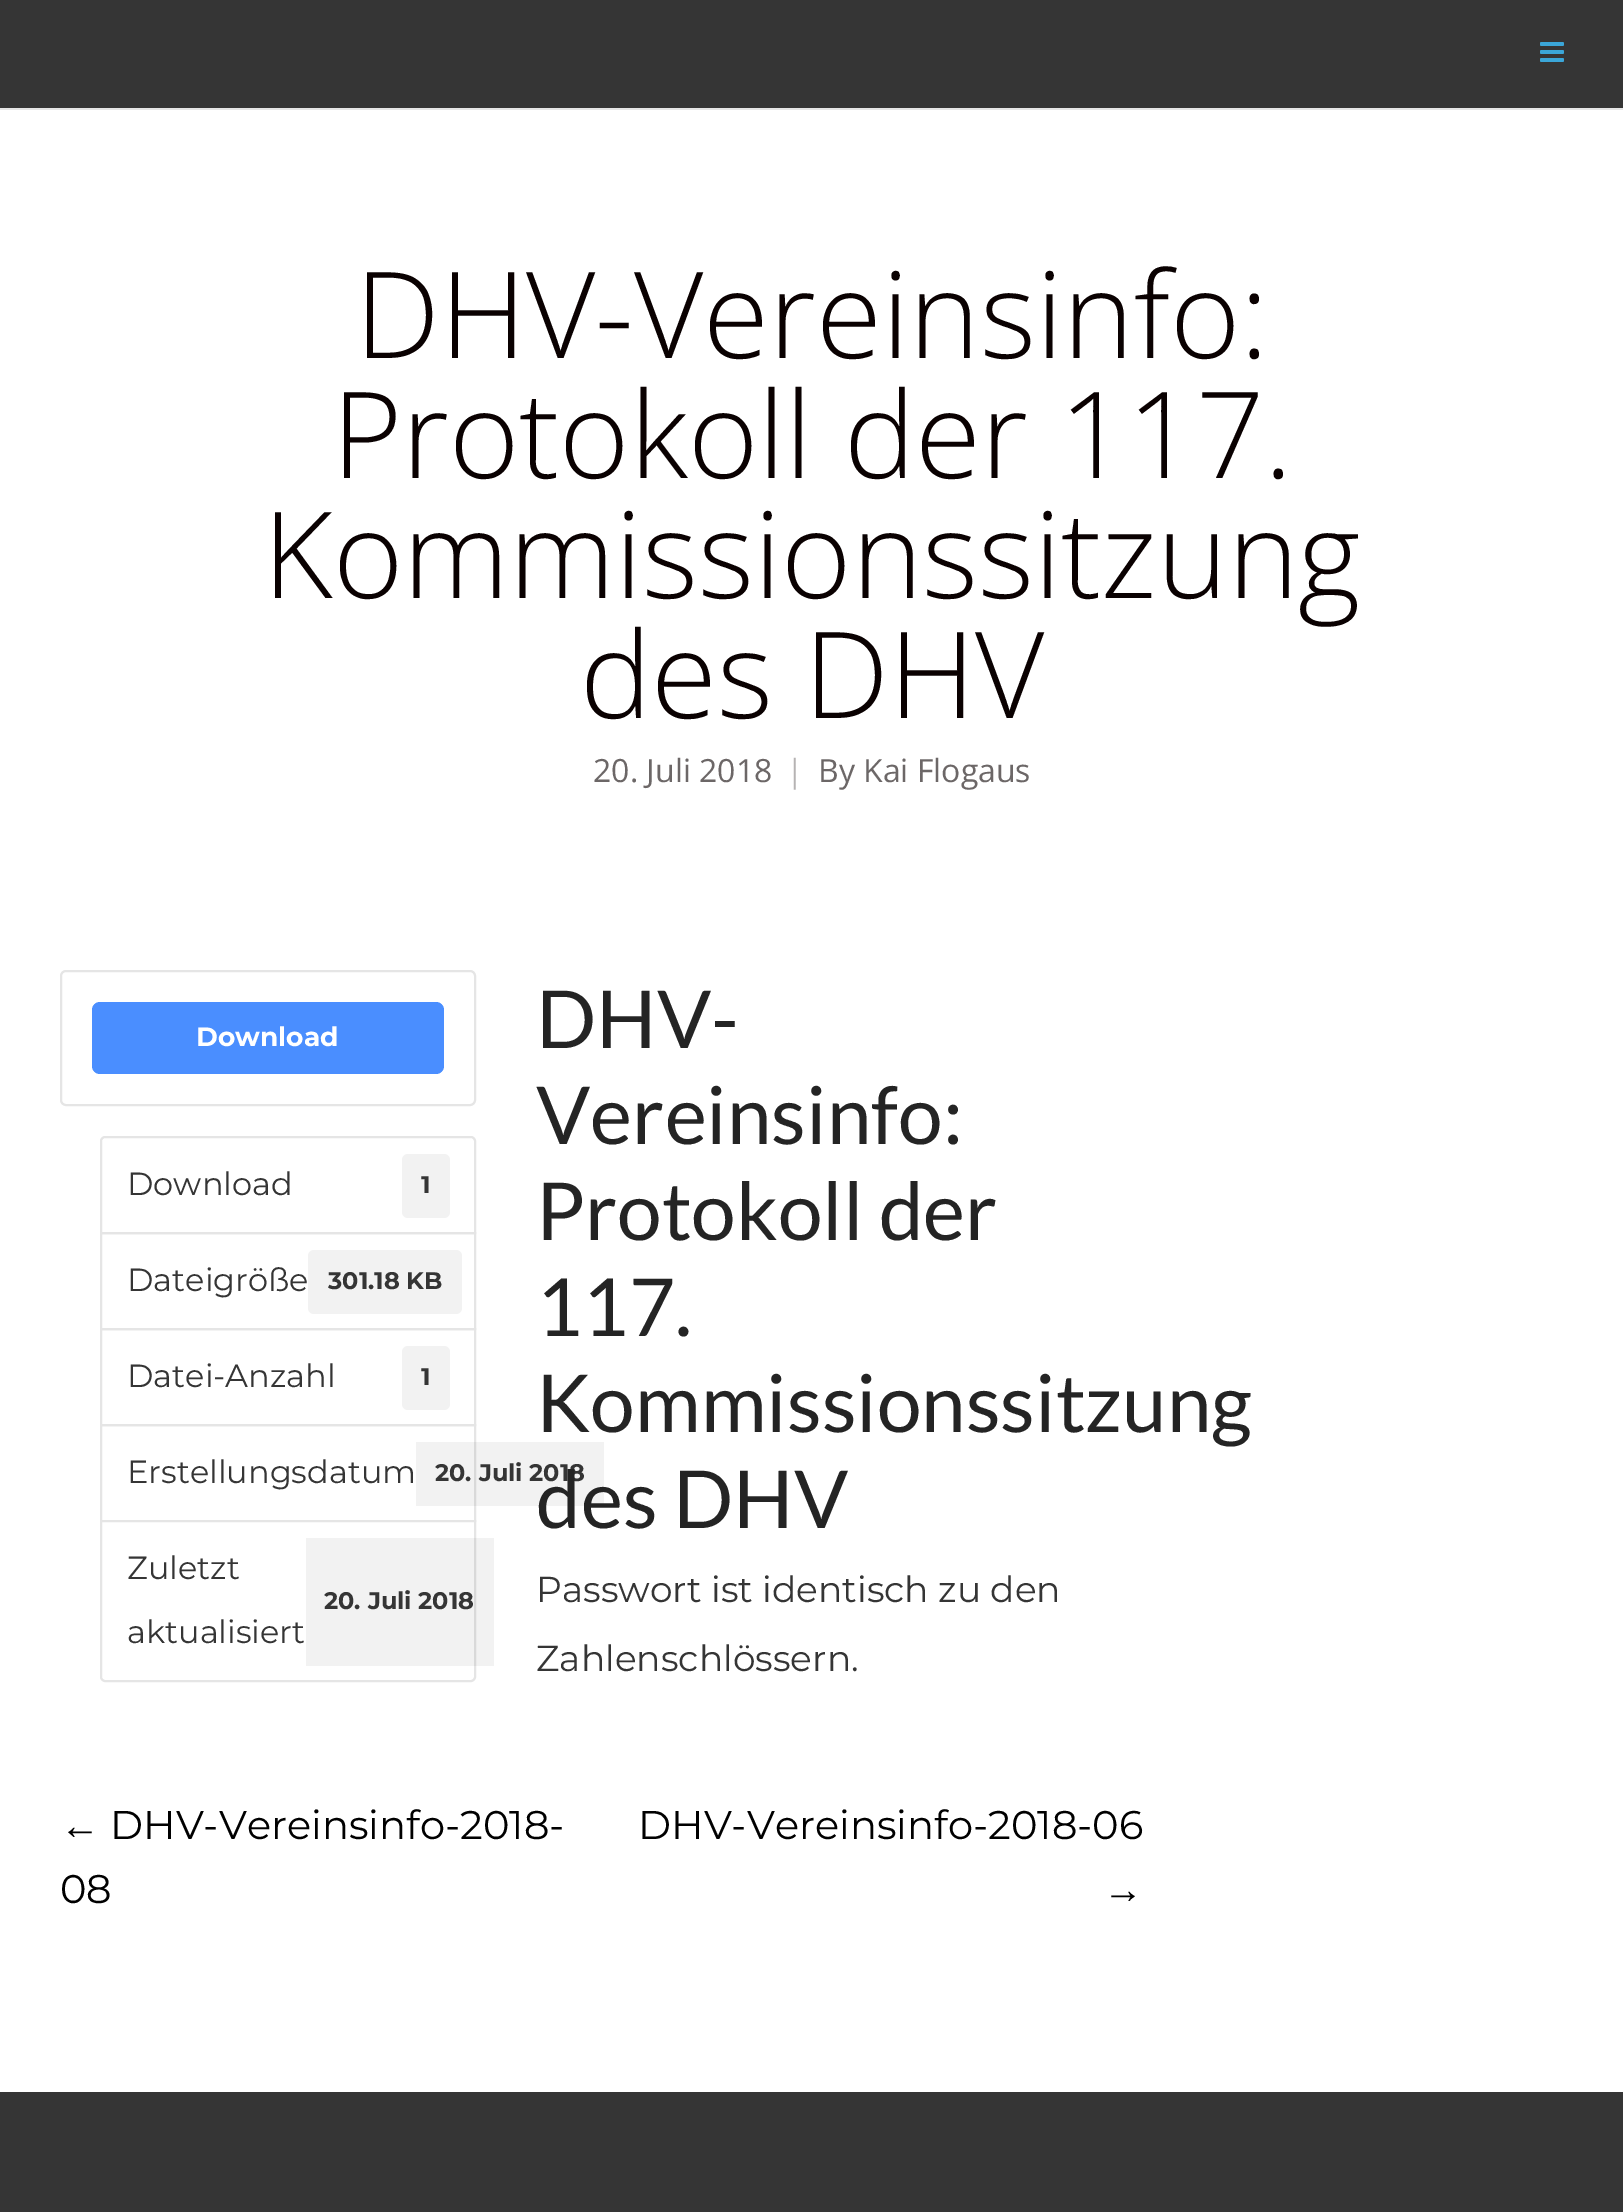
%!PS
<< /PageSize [1623 2212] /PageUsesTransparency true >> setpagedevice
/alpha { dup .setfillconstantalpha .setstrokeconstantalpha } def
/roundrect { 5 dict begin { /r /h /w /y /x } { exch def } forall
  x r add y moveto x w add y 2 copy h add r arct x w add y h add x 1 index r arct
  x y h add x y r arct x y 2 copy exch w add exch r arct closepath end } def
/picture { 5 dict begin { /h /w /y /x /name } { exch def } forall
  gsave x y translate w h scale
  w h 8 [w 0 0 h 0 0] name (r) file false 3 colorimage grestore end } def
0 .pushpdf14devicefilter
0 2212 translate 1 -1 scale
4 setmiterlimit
1 setgray
0 0 1623 2212 rectfill
0.902 setgray
0 108 1623 2 rectfill
0.208 setgray
0 0 1623 108 rectfill
(img1.rgb) 1540 42 24 20 picture
/OpenSans-Light [120 0 0 -120 0 0] selectfont
0.039 0.004 0.004 setrgbcolor
355 358 moveto (DHV-Vereinsinfo:) show
332 478 moveto (Protokoll der 117.) show
263 598 moveto (Kommissionssitzung) show
580 718 moveto (des DHV) show
/OpenSans-Regular [32 0 0 -32 0 0] selectfont
0.424 0.404 0.404 setrgbcolor
593 782 moveto (20. Juli 2018) show
0.714 0.702 0.702 setrgbcolor
786 782 moveto (|) show
0.424 0.404 0.404 setrgbcolor
818 782 moveto (By Kai Flogaus) show
0.898 setgray
2 setlinewidth
61 971 414 134 5 roundrect stroke
0.29 0.557 1 setrgbcolor
92 1002 352 72 8 roundrect fill
/Montserrat-Bold [26.5 0 0 -26.5 0 0] selectfont
1 setgray
196 1046 moveto (Download) show
0.898 setgray
newpath 105 1137 moveto 471 1137 lineto 473 1137 475 1139 475 1141 curveto 475 1233 lineto 101 1233 lineto 101 1141 lineto 101 1139 103 1137 105 1137 curveto closepath stroke
/Montserrat-Thin [32 0 0 -32 0 0] selectfont
0.208 setgray
127 1195 moveto (Download) show
0.949 setgray
402 1154 48 64 6 roundrect fill
/Montserrat-Bold [24 0 0 -24 0 0] selectfont
0.208 setgray
421 1193 moveto (1) show
0.898 setgray
101 1233 374 96 rectstroke
/Montserrat-Thin [32 0 0 -32 0 0] selectfont
0.208 setgray
127 1291 moveto (Dateigröße) show
0.949 setgray
308 1250 154 64 6 roundrect fill
/Montserrat-Bold [24 0 0 -24 0 0] selectfont
0.208 setgray
328 1289 moveto (301.18 KB) show
0.898 setgray
101 1329 374 96 rectstroke
/Montserrat-Thin [32 0 0 -32 0 0] selectfont
0.208 setgray
127 1387 moveto (Datei-Anzahl) show
0.949 setgray
402 1346 48 64 6 roundrect fill
/Montserrat-Bold [24 0 0 -24 0 0] selectfont
0.208 setgray
421 1385 moveto (1) show
0.898 setgray
101 1425 374 96 rectstroke
/Montserrat-Thin [32 0 0 -32 0 0] selectfont
0.208 setgray
127 1483 moveto (Erstellungsdatum) show
0.05 alpha
0 setgray
416 1442 188 64 rectfill
/Montserrat-Bold [24 0 0 -24 0 0] selectfont
1 alpha
0.208 setgray
435 1481 moveto (20. Juli 2018) show
1 setgray
newpath 101 1521 moveto 475 1521 lineto 475 1677 lineto 475 1679 473 1681 471 1681 curveto 105 1681 lineto 103 1681 101 1679 101 1677 curveto closepath gsave fill grestore
0.898 setgray
stroke
/Montserrat-Thin [32 0 0 -32 0 0] selectfont
0.208 setgray
127 1579 moveto (Zuletzt) show
0.05 alpha
0 setgray
306 1538 188 128 rectfill
/Montserrat-Bold [24 0 0 -24 0 0] selectfont
1 alpha
0.208 setgray
324 1609 moveto (20. Juli 2018) show
/Montserrat-Thin [32 0 0 -32 0 0] selectfont
127 1643 moveto (aktualisiert) show
/Lato-Regular [80 0 0 -80 0 0] selectfont
0.141 setgray
536 1048 moveto (DHV-) show
536 1144 moveto (Vereinsinfo:) show
536 1240 moveto (Protokoll der) show
536 1336 moveto (117.) show
536 1432 moveto (Kommissionssitzung) show
536 1528 moveto (des DHV) show
/Montserrat-Thin [36 0 0 -36 0 0] selectfont
0.208 setgray
536 1602 moveto (Passwort ist identisch zu den) show
536 1671 moveto (Zahlenschlössern.) show
/LiberationSerif-Regular [40 0 0 -40 0 0] selectfont
0 setgray
60 1839 moveto (←) show
/Montserrat-Thin [40 0 0 -40 0 0] selectfont
110 1839 moveto (DHV-Vereinsinfo-2018-) show
60 1903 moveto (08) show
638 1839 moveto (DHV-Vereinsinfo-2018-06) show
/LiberationSerif-Regular [40 0 0 -40 0 0] selectfont
1103 1903 moveto (→) show
0.208 setgray
0 2092 1623 120 rectfill
.poppdf14devicefilter showpage
